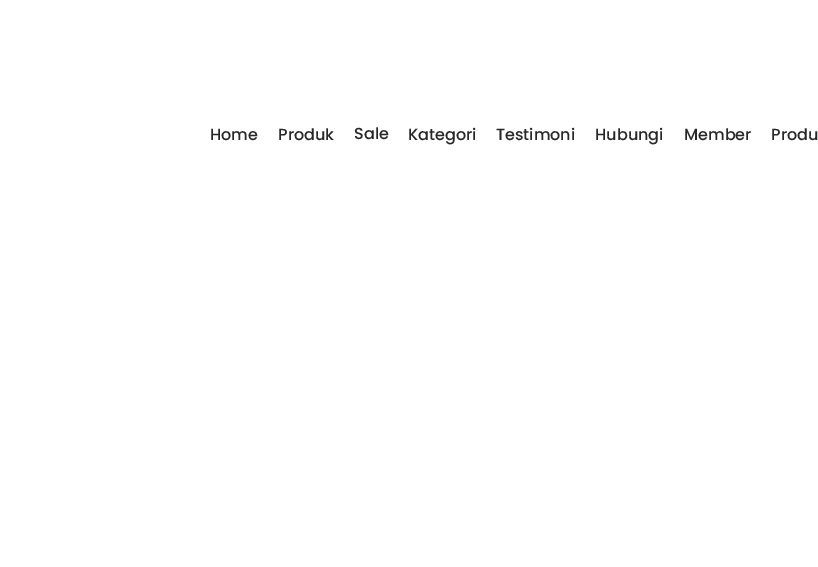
%!PS
<< /PageSize [818 567] >> setpagedevice
0 567 translate 1 -1 scale
4 setmiterlimit
1 setgray
0 0 818 567 rectfill
/Poppins-Medium [16 0 0 -16 0 0] selectfont
0.157 setgray
210 140 moveto (Home) show
278 140 moveto (Produk) show
354 139 moveto (Sale) show
408 140 moveto (Kategori) show
496 140 moveto (Testimoni) show
595 140 moveto (Hubungi) show
684 140 moveto (Member) show
771 140 moveto (Produ) show
showpage
